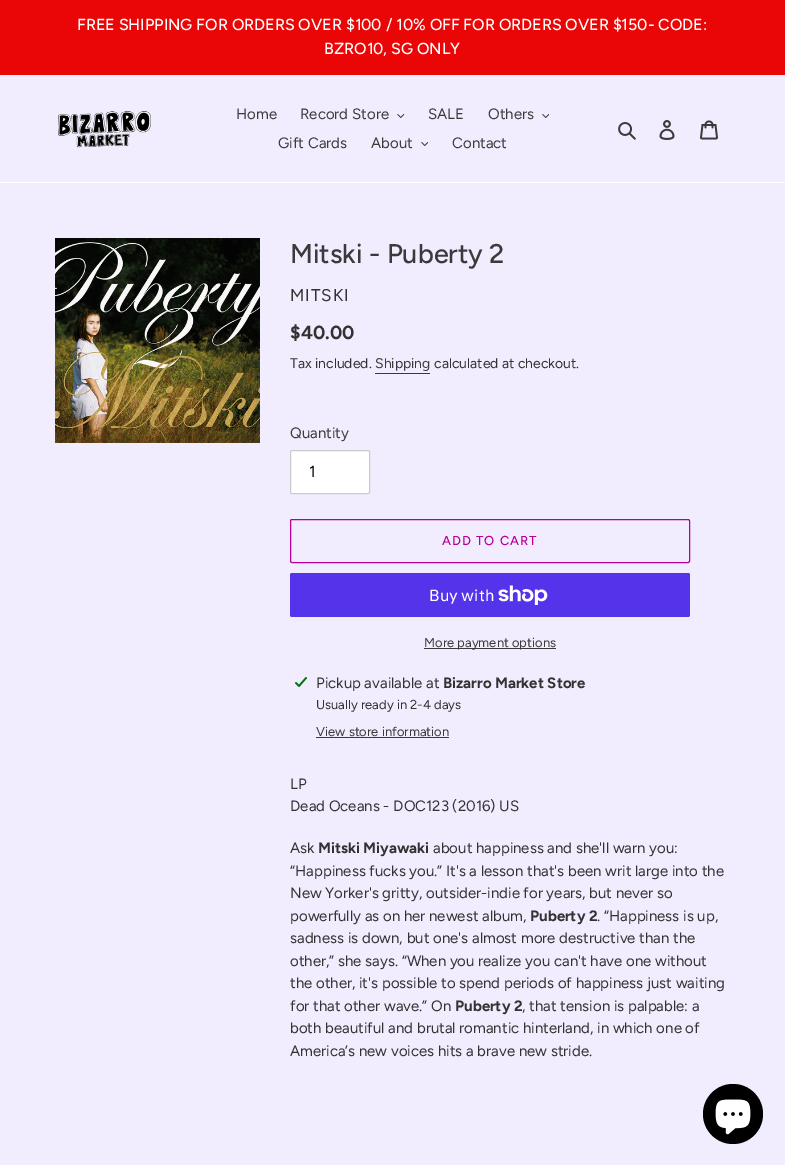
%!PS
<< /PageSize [785 1165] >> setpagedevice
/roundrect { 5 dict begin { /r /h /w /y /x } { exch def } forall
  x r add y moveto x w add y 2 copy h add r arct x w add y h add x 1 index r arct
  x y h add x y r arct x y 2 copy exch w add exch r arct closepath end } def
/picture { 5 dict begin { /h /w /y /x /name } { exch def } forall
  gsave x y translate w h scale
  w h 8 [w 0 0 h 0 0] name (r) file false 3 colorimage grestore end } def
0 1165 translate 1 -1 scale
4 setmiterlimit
0.945 0.929 1 setrgbcolor
0 0 785 1165 rectfill
0.918 0.024 0.024 setrgbcolor
0 0 785 75 rectfill
/Figtree-Medium [16 0 0 -16 0 0] selectfont
1 setgray
77 30 moveto (FREE SHIPPING FOR ORDERS OVER $100 / 10% OFF FOR ORDERS OVER $150- CODE:) show
324 54 moveto (BZRO10, SG ONLY) show
0 182 785 1 rectfill
(img1.rgb) 58 111 93 37 picture
/Figtree-Regular [15 0 0 -15 0 0] selectfont
0.227 setgray
236 119 moveto (Home) show
300 119 moveto (Record Store) show
(img2.rgb) 397 114 8 4 picture
428 119 moveto (SALE) show
488 119 moveto (Others) show
(img3.rgb) 542 114 7 4 picture
278 148 moveto (Gift Cards) show
371 148 moveto (About) show
(img3.rgb) 421 142 7 4 picture
452 148 moveto (Contact) show
(img4.rgb) 618 122 18 18 picture
(img5.rgb) 659 120 16 20 picture
(img6.rgb) 700 120 18 20 picture
(img7.rgb) 55 238 205 205 picture
/Figtree-Medium [27 0 0 -27 0 0] selectfont
290 263 moveto (Mitski - Puberty 2) show
/Figtree-Regular [17 0 0 -17 0 0] selectfont
0.2 0.196 0.196 setrgbcolor
290 301 moveto 1 0 (MITSKI) ashow
/Figtree-Bold [19 0 0 -19 0 0] selectfont
290 339 moveto ($40.00) show
/Figtree-Regular [14 0 0 -14 0 0] selectfont
290 368 moveto (Tax included.) show
0.227 setgray
375 368 moveto (Shipping) show
375 373 55 1 rectfill
0.2 0.196 0.196 setrgbcolor
434 368 moveto (calculated at checkout.) show
/Figtree-Regular [15 0 0 -15 0 0] selectfont
0.227 setgray
290 438 moveto (Quantity) show
1 setgray
290.5 450.5 79 43 1.5 roundrect gsave fill grestore
0.8 setgray
stroke
/Figtree-Regular [16 0 0 -16 0 0] selectfont
0 setgray
309 477 moveto (1) show
0.722 0 0.6 setrgbcolor
290.5 519.5 399 43 1.5 roundrect stroke
/Figtree-Medium [13 0 0 -13 0 0] selectfont
442 545 moveto 1 0 (ADD TO CART) ashow
0.329 0.2 0.922 setrgbcolor
290 573 400 44 2 roundrect fill
/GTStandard-Regular [16 0 0 -16 0 0] selectfont
1 setgray
429 601 moveto (Buy with) show
(img8.rgb) 498 585 50 20 picture
0.227 setgray
424 648 132 1 rectfill
/Figtree-Regular [13 0 0 -13 0 0] selectfont
424 647 moveto (More payment options) show
(img9.rgb) 295 677 12 10 picture
/Figtree-Regular [15 0 0 -15 0 0] selectfont
0.2 0.196 0.196 setrgbcolor
316 688 moveto (Pickup available at) show
/Figtree-Bold [15 0 0 -15 0 0] selectfont
443 688 moveto (Bizarro Market Store) show
/Figtree-Regular [13 0 0 -13 0 0] selectfont
316 709 moveto (Usually ready in 2-4 days) show
0.227 setgray
316 736 moveto (View store information) show
316 737 133 1 rectfill
/Figtree-Regular [15 0 0 -15 0 0] selectfont
0.2 0.196 0.196 setrgbcolor
290 789 moveto (LP) show
290 811 moveto (Dead Oceans - DOC123 \(2016\) US) show
290 853 moveto (Ask) show
/Figtree-Bold [15 0 0 -15 0 0] selectfont
318 853 moveto (Mitski Miyawaki) show
/Figtree-Regular [15 0 0 -15 0 0] selectfont
433 853 moveto (about happiness and she'll warn you:) show
290 876 moveto (“Happiness fucks you.” It's a lesson that's been writ large into the) show
290 898 moveto (New Yorker's gritty, outsider-indie for years, but never so) show
290 921 moveto (powerfully as on her newest album,) show
/Figtree-Bold [15 0 0 -15 0 0] selectfont
530 921 moveto (Puberty 2) show
/Figtree-Regular [15 0 0 -15 0 0] selectfont
597 921 moveto (. “Happiness is up,) show
290 943 moveto (sadness is down, but one's almost more destructive than the) show
290 966 moveto (other,” she says. “When you realize you can't have one without) show
290 988 moveto (the other, it's possible to spend periods of happiness just waiting) show
290 1011 moveto (for that other wave.” On) show
/Figtree-Bold [15 0 0 -15 0 0] selectfont
455 1011 moveto (Puberty 2) show
/Figtree-Regular [15 0 0 -15 0 0] selectfont
522 1011 moveto (, that tension is palpable: a) show
290 1033 moveto (both beautiful and brutal romantic hinterland, in which one of) show
290 1056 moveto (America’s new voices hits a brave new stride.) show
0 setgray
newpath 733 1114 30 0 360 arc closepath fill
(img10.rgb) 715 1099 36 36 picture
showpage
